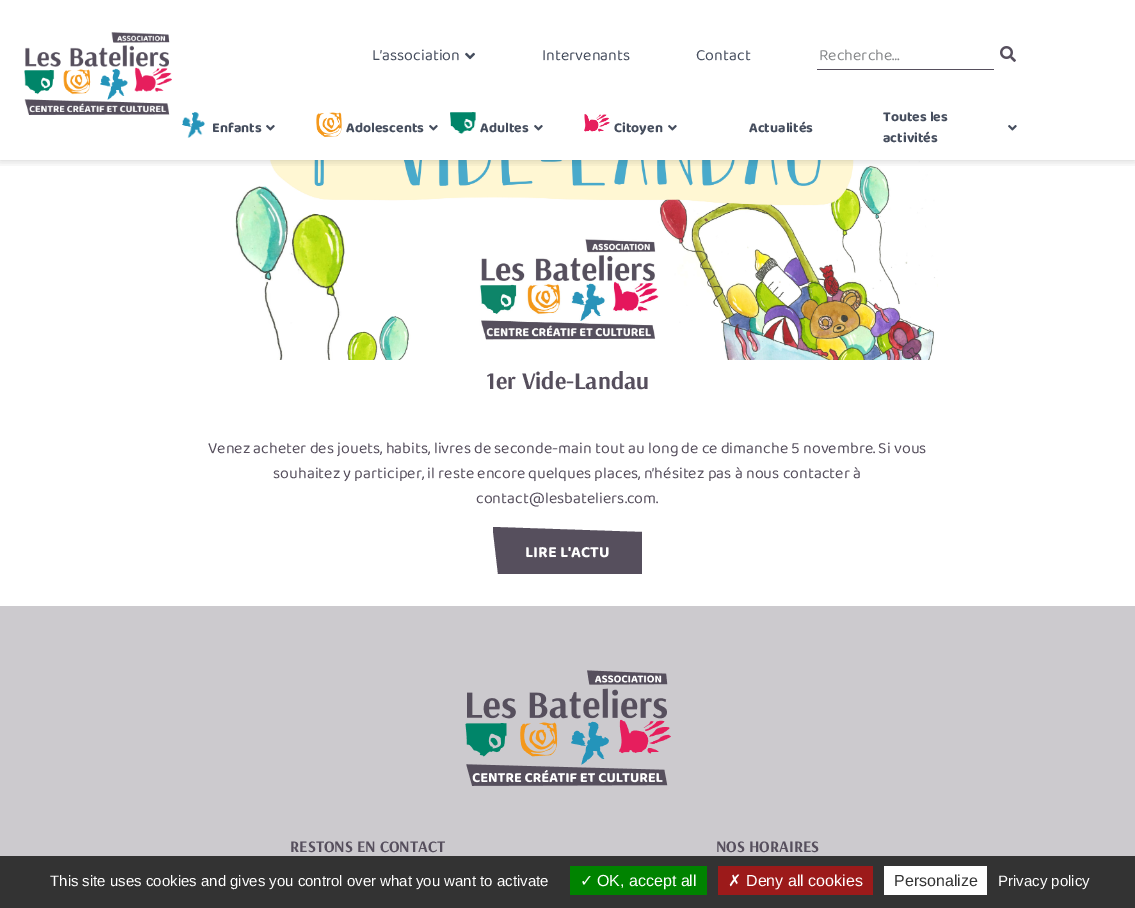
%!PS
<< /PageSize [1135 908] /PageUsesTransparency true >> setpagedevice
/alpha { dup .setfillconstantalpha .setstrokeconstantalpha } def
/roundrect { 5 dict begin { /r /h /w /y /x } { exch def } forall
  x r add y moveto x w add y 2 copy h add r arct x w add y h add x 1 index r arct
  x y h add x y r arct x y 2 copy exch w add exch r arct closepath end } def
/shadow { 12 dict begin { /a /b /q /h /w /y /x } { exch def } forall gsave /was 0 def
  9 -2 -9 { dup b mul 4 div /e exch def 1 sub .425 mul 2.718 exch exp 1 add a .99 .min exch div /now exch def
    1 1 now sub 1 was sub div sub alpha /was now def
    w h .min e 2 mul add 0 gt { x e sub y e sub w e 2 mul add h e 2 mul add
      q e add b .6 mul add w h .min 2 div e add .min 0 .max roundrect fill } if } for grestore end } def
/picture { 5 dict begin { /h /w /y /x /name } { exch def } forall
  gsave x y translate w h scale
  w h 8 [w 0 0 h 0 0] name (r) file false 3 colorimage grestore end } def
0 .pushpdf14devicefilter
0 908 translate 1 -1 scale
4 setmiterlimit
1 setgray
0 0 1135 908 rectfill
(img9.rgb) 235 160 703 200 picture
gsave
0 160 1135 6 rectclip
0 setgray
0 0 1135 160 0 5 0.2 shadow
grestore
(img1.rgb) 24 32 148 83 picture
/Baloo2-Regular [16 0 0 -16 0 0] selectfont
0.271 0.302 0.365 setrgbcolor
372 60 moveto (L’association) show
(img2.rgb) 465 52 10 8 picture
542 60 moveto (Intervenants) show
696 60 moveto (Contact) show
0.337 0.31 0.365 setrgbcolor
817 69 177 1 rectfill
0.529 0.537 0.545 setrgbcolor
819 60 moveto (Recherche…) show
(img3.rgb) 1000 46 16 16 picture
(img4.rgb) 182 112 23 26 picture
/Baloo2-Bold [14 0 0 -14 0 0] selectfont
0.271 0.302 0.365 setrgbcolor
212 132 moveto (Enfants) show
(img5.rgb) 266 125 9 6 picture
(img6.rgb) 316 112 26 25 picture
346 132 moveto (Adolescents) show
(img5.rgb) 429 125 9 6 picture
(img7.rgb) 450 112 26 22 picture
480 132 moveto (Adultes) show
(img5.rgb) 534 125 9 6 picture
(img8.rgb) 584 114 26 18 picture
614 132 moveto (Citoyen) show
(img5.rgb) 668 125 9 6 picture
749 132 moveto (Actualités) show
883 121 moveto (Toutes les) show
(img5.rgb) 1008 125 9 6 picture
883 142 moveto (activités) show
/Arsenal-Bold [24 0 0 -24 0 0] selectfont
0.337 0.31 0.365 setrgbcolor
486 389 moveto (1er Vide-Landau) show
/Baloo2-Regular [16 0 0 -16 0 0] selectfont
208 453 moveto (Venez acheter des jouets, habits, livres de seconde-main tout au long de ce dimanche 5 novembre. Si vous) show
273 478 moveto (souhaitez y participer, il reste encore quelques places, n’hésitez pas à nous contacter à) show
476 503 moveto (contact@lesbateliers.com.) show
newpath 493 527 moveto 642 532 lineto 642 574 lineto 498 574 lineto 493 531 lineto closepath fill
/Baloo2-Bold [16 0 0 -16 0 0] selectfont
1 setgray
525 557 moveto (LIRE L'ACTU) show
0.8 0.792 0.808 setrgbcolor
0 606 1135 250 rectfill
(img10.rgb) 465 670 206 116 picture
/Arsenal-Bold [16 0 0 -16 0 0] selectfont
0.337 0.31 0.365 setrgbcolor
290 852 moveto (RESTONS EN CONTACT) show
716 852 moveto (NOS HORAIRES) show
0.2 setgray
0 856 1135 52 rectfill
/LiberationSans-Regular [15 0 0 -15 0 0] selectfont
1 setgray
50 886 moveto (This site uses cookies and gives you control over what you want to activate) show
0 0.514 0 setrgbcolor
570 866 137 29 rectfill
/DejaVuSans-Regular [16 0 0 -16 0 0] selectfont
1 setgray
580 886 moveto (✓) show
/LiberationSans-Regular [16 0 0 -16 0 0] selectfont
597 886 moveto (OK, accept all) show
0.612 0.102 0.102 setrgbcolor
718 866 155 29 rectfill
/DejaVuSans-Regular [16 0 0 -16 0 0] selectfont
1 setgray
728 886 moveto (✗) show
/LiberationSans-Regular [16 0 0 -16 0 0] selectfont
746 886 moveto (Deny all cookies) show
884 866 103 29 rectfill
0.2 setgray
894 886 moveto (Personalize) show
/LiberationSans-Regular [15 0 0 -15 0 0] selectfont
1 setgray
998 886 moveto (Privacy policy) show
.poppdf14devicefilter showpage
